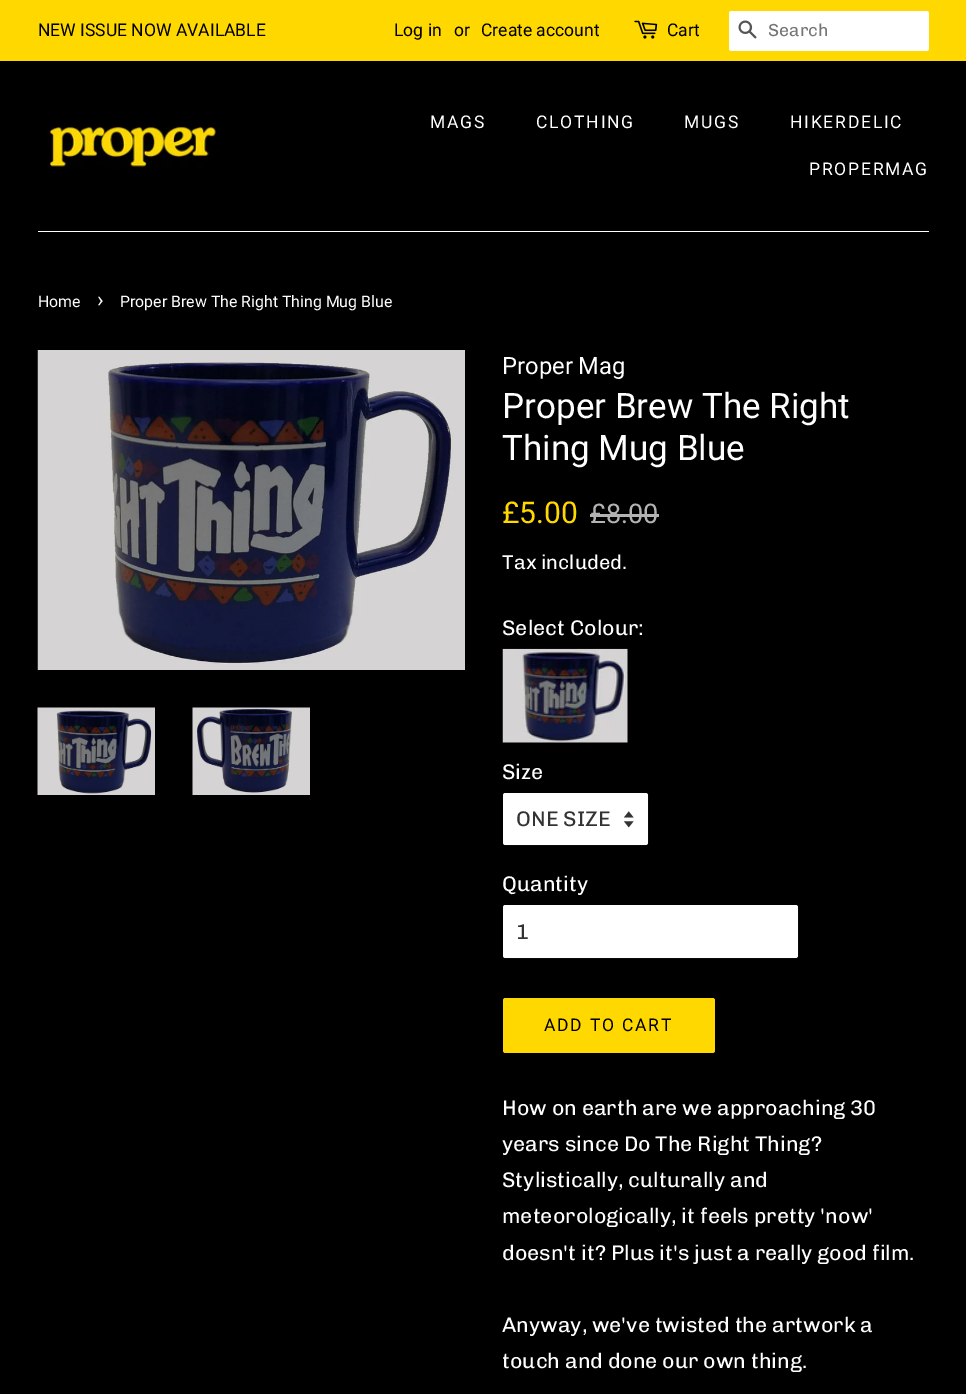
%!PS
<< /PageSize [966 1394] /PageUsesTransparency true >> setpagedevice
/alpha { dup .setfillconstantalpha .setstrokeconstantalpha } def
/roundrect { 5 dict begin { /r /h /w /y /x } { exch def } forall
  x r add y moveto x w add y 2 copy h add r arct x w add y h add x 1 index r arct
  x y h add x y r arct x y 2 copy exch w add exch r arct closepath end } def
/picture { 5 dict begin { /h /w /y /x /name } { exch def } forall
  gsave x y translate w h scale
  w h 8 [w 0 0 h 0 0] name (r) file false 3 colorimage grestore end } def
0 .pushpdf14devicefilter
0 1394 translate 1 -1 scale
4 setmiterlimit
0 setgray
0 0 966 1394 rectfill
1 0.847 0 setrgbcolor
0 0 966 61 rectfill
/Roboto-Regular [17.5 0 0 -17.5 0 0] selectfont
0 setgray
38 36 moveto (NEW ISSUE NOW AVAILABLE) show
394 36 moveto (Log in) show
454 36 moveto (or) show
481 36 moveto (Create account) show
(img1.rgb) 634 20 24 19 picture
667 36 moveto (Cart) show
1 setgray
729 11 200 40 2.5 roundrect fill
(img2.rgb) 738 20 19 19 picture
/Chivo-Regular [17.5 0 0 -17.5 0 0] selectfont
0.459 setgray
768 36 moveto (Search) show
1 setgray
38 231 891 1 rectfill
(img3.rgb) 46 126 174 43 picture
/Roboto-Regular [17.5 0 0 -17.5 0 0] selectfont
430 128 moveto 1.75 0 (MAGS) ashow
536 128 moveto 1.75 0 (CLOTHING) ashow
684 128 moveto 1.75 0 (MUGS) ashow
790 128 moveto 1.75 0 (HIKERDELIC) ashow
809 175 moveto 1.75 0 (PROPERMAG) ashow
/Roboto-Regular [15.9 0 0 -15.9 0 0] selectfont
38 307 moveto (Home) show
/Roboto-Regular [22 0 0 -22 0 0] selectfont
97 307 moveto (›) show
/Roboto-Regular [15.9 0 0 -15.9 0 0] selectfont
120 307 moveto (Proper Brew The Right Thing Mug Blue) show
(img4.rgb) 37 350 428 320 picture
(img5.rgb) 37 707 118 88 picture
(img6.rgb) 192 707 118 88 picture
/Roboto-Regular [23.75 0 0 -23.75 0 0] selectfont
502 374 moveto (Proper Mag) show
/Roboto-Regular [35 0 0 -35 0 0] selectfont
502 418 moveto (Proper Brew The Right) show
502 460 moveto (Thing Mug Blue) show
/Roboto-Regular [30 0 0 -30 0 0] selectfont
1 0.847 0 setrgbcolor
502 523 moveto (£5.00) show
/Roboto-Regular [27 0 0 -27 0 0] selectfont
0.702 setgray
590 523 moveto (£8.00) show
590 514 69 3 rectfill
/Chivo-Regular [20 0 0 -20 0 0] selectfont
1 setgray
502 569 moveto (Tax included.) show
/Chivo-Regular [21.25 0 0 -21.25 0 0] selectfont
502 635 moveto (Select Colour:) show
(img7.rgb) 502 648 126 95 picture
502 779 moveto (Size) show
503 793 145 52 2.5 roundrect fill
(img8.rgb) 624 811 10 17 picture
0.15 alpha
503.5 793.5 144 51 2 roundrect stroke
1 alpha
0.2 setgray
516 826 moveto (ONE SIZE) show
1 setgray
502 891 moveto (Quantity) show
503 905 295 53 2.5 roundrect fill
0.15 alpha
503.5 905.5 294 52 2 roundrect stroke
1 alpha
0.2 setgray
516 939 moveto (1) show
1 0.847 0 setrgbcolor
503 998 212 55 2.5 roundrect fill
/Roboto-Regular [17.5 0 0 -17.5 0 0] selectfont
0 setgray
544 1031 moveto 1.75 0 (ADD TO CART) ashow
/Chivo-Regular [21.25 0 0 -21.25 0 0] selectfont
1 setgray
502 1115 moveto (How on earth are we approaching 30) show
502 1151 moveto (years since Do The Right Thing?) show
502 1187 moveto (Stylistically, culturally and) show
502 1223 moveto (meteorologically, it feels pretty 'now') show
502 1260 moveto (doesn't it? Plus it's just a really good film.) show
502 1332 moveto (Anyway, we've twisted the artwork a) show
502 1368 moveto (touch and done our own thing.) show
.poppdf14devicefilter showpage
